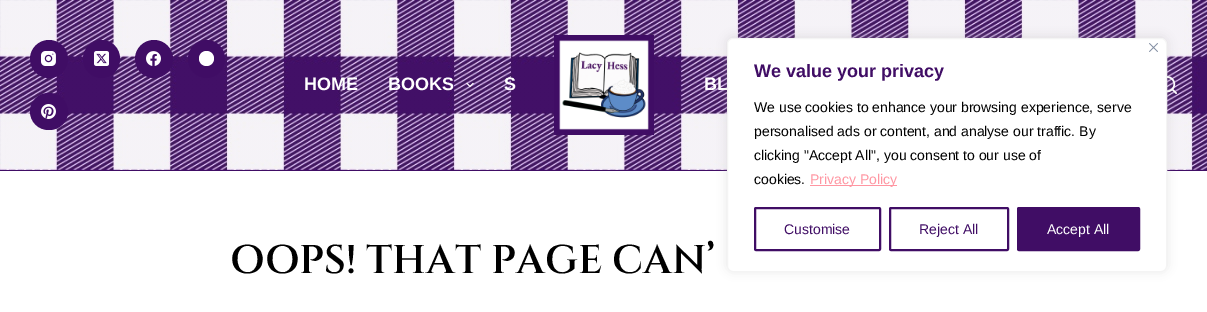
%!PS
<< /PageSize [1207 312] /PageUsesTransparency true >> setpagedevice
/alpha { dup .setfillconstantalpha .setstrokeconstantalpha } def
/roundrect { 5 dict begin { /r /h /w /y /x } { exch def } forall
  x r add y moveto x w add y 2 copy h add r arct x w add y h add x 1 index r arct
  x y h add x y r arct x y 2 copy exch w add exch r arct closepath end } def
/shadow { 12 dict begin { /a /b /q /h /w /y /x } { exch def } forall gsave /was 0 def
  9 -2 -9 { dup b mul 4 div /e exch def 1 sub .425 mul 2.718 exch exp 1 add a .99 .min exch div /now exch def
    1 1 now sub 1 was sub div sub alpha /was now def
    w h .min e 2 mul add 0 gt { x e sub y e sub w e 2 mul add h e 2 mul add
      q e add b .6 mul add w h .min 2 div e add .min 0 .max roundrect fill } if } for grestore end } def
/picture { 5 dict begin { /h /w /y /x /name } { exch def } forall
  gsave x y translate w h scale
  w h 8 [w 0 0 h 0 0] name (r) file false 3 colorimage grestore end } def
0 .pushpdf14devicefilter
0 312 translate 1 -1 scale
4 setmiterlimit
1 setgray
0 0 1207 312 rectfill
(img1.rgb) 0 0 1207 170 picture
0.251 0.051 0.396 setrgbcolor
0 170 1207 1 rectfill
newpath 49 59 19 0 360 arc closepath fill
(img2.rgb) 41 51 15 15 picture
83 40 37 38 18.5 roundrect fill
(img3.rgb) 94 51 15 15 picture
newpath 154 59 19 0 360 arc closepath fill
(img4.rgb) 146 51 15 15 picture
188 40 37 38 18.5 roundrect fill
1 setgray
newpath 206.5 58.5 7.5 0 360 arc closepath fill
0.251 0.051 0.396 setrgbcolor
30 93 38 37 18.5 roundrect fill
(img5.rgb) 41 104 15 15 picture
/LiberationSans-Bold [18 0 0 -18 0 0] selectfont
1 setgray
304 90 moveto (HOME) show
388 90 moveto (BOOKS) show
(img6.rgb) 466 82 8 6 picture
504 90 moveto (S) show
(img7.rgb) 554 35 100 100 picture
704 90 moveto (BL) show
(img8.rgb) 1167 76 10 18 picture
/Cinzel-SemiBold [40 0 0 -40 0 0] selectfont
0 setgray
230 273 moveto (OOPS! THAT PAGE CAN’) show
0.675 0.671 0.671 setrgbcolor
727 37 440 234 6 5 0.3 shadow
1 setgray
727.5 38.5 439 233 5.5 roundrect gsave fill grestore
0.957 setgray
stroke
(img9.rgb) 1149 43 9 9 picture
/LiberationSans-Bold [18 0 0 -18 0 0] selectfont
0.251 0.051 0.396 setrgbcolor
754 77 moveto (We value your privacy) show
/LiberationSans-Regular [14 0 0 -14 0 0] selectfont
0 setgray
754 112 moveto (We use cookies to enhance your browsing experience, serve) show
754 136 moveto (personalised ads or content, and analyse our traffic. By) show
754 160 moveto (clicking "Accept All", you consent to our use of) show
754 184 moveto (cookies.) show
1 0.588 0.635 setrgbcolor
810 185 87 1 rectfill
810 184 moveto (Privacy Policy) show
0.251 0.051 0.396 setrgbcolor
2 setlinewidth
755 208 125 42 1 roundrect stroke
784 234 moveto (Customise) show
890 208 118 42 1 roundrect stroke
919 234 moveto (Reject All) show
1018 208 121 42 1 roundrect gsave fill grestore
stroke
1 setgray
1047 234 moveto (Accept All) show
.poppdf14devicefilter showpage
